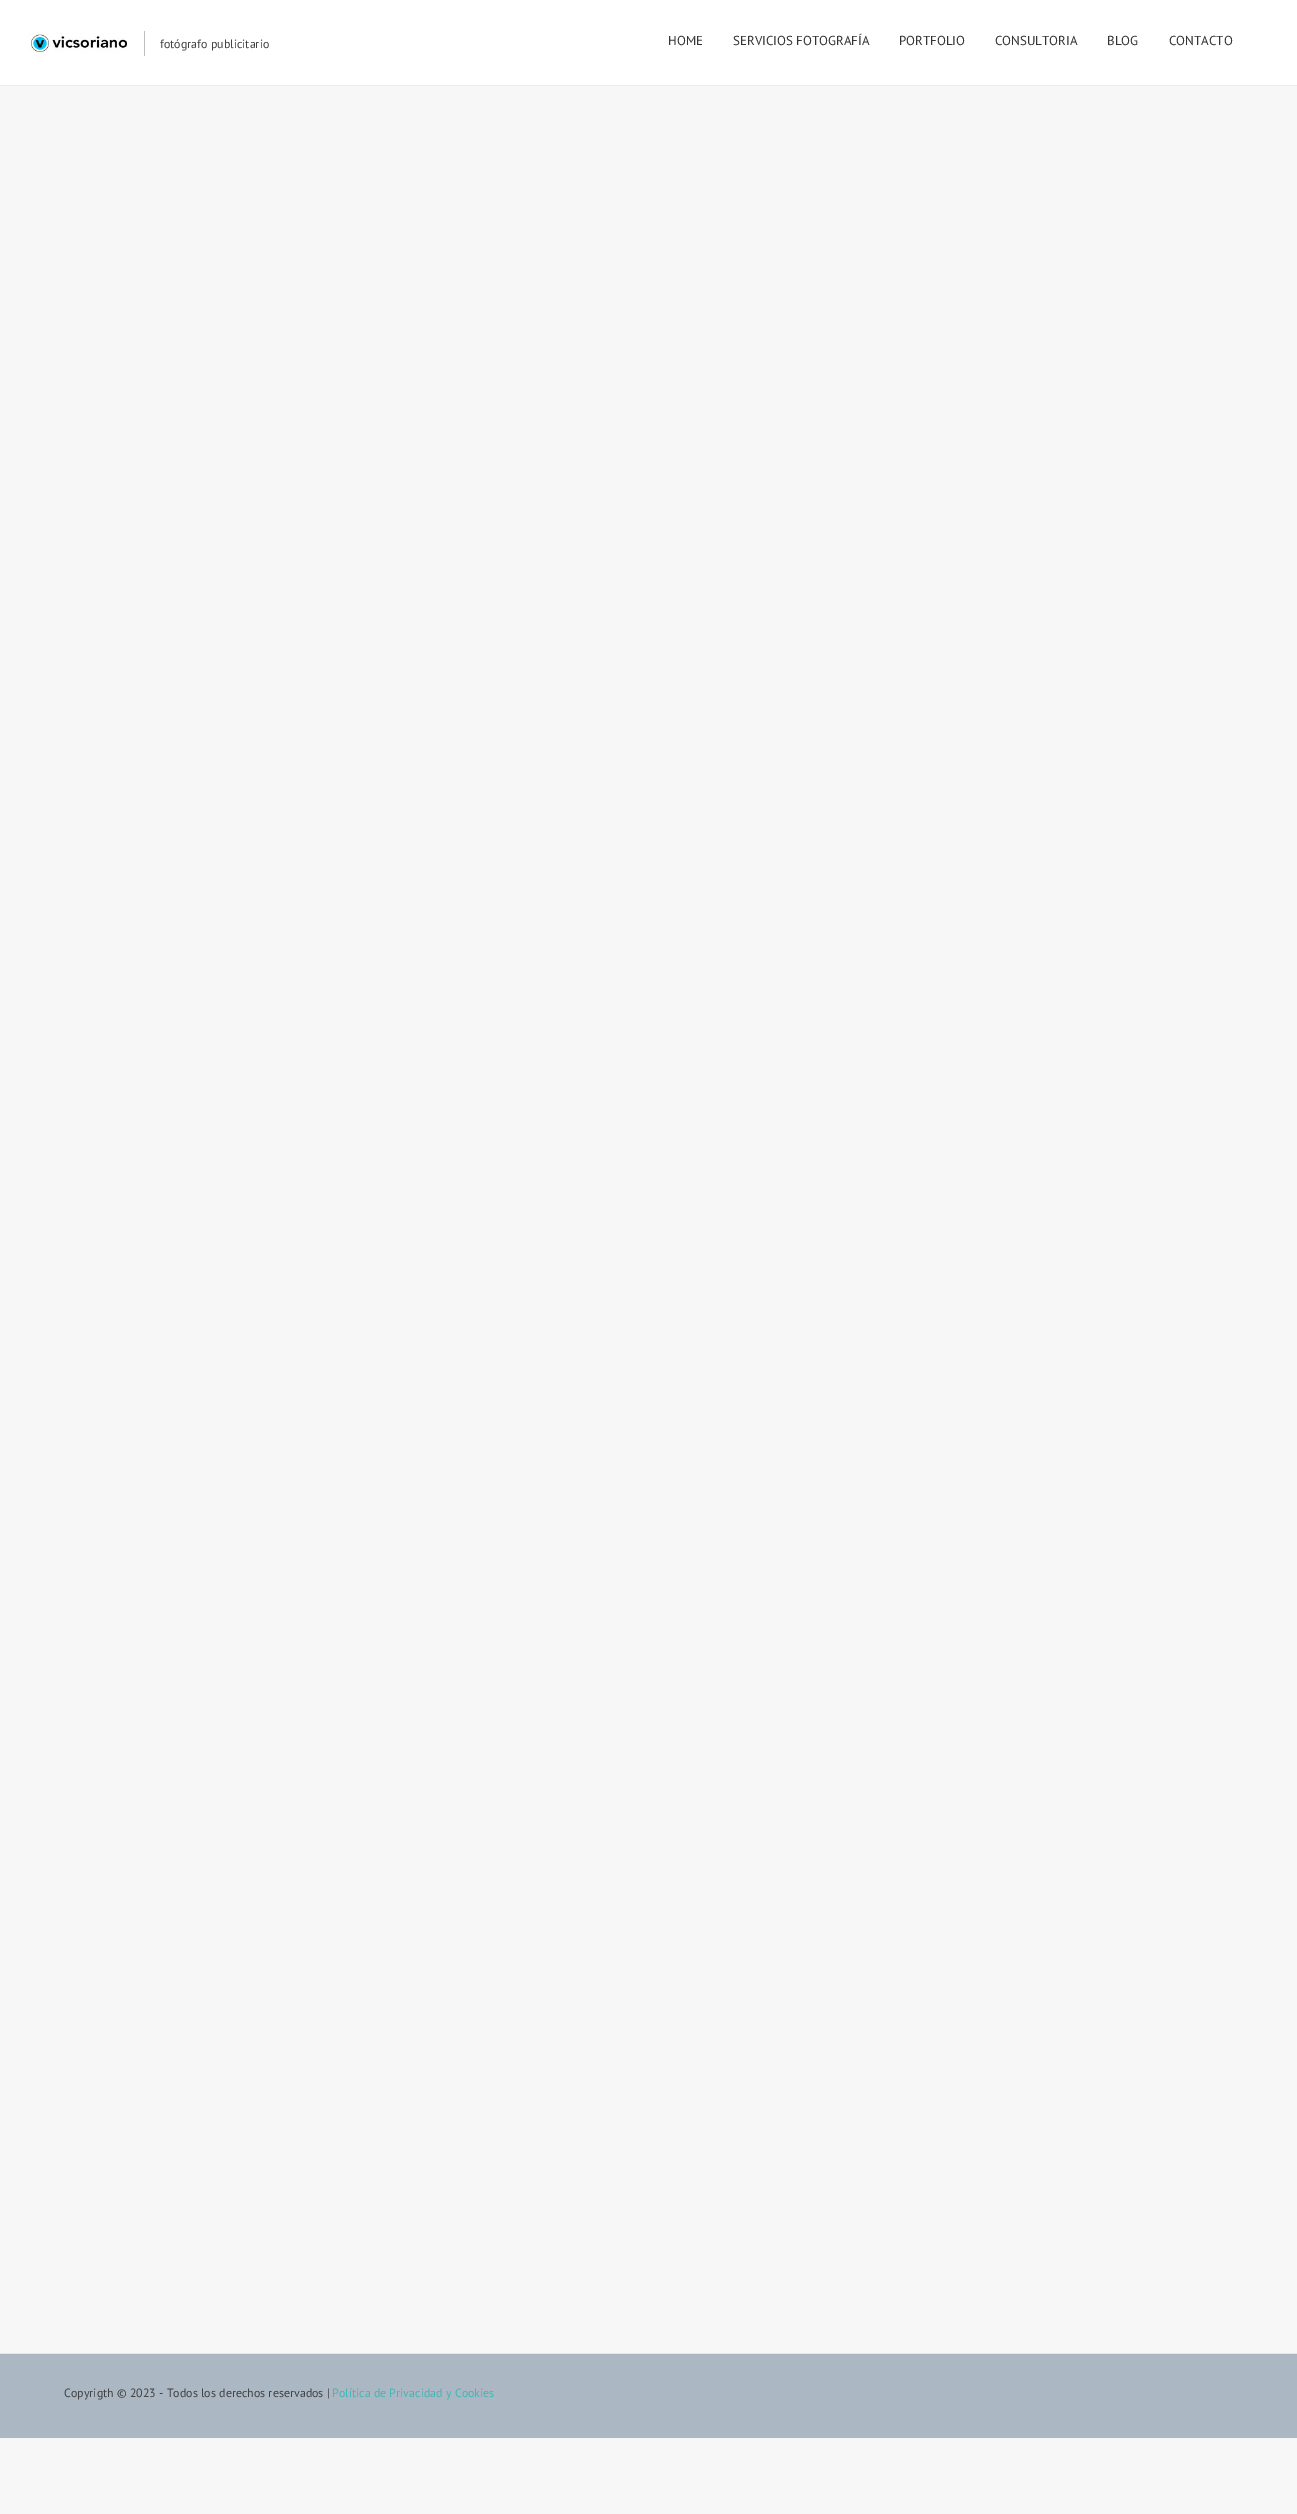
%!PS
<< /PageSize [1297 2514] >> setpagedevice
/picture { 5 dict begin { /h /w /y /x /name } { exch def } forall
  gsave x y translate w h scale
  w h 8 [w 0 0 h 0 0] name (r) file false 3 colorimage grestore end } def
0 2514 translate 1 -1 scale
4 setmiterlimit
0.969 setgray
0 0 1297 2514 rectfill
1 setgray
0 0 1297 85 rectfill
0.925 setgray
0 85 1297 1 rectfill
(img1.rgb) 29 33 98 19 picture
0.745 setgray
144 31 1 25 rectfill
/PTSans-Regular [12 0 0 -12 0 0] selectfont
0.263 setgray
160 48 moveto (fotógrafo publicitario) show
/PTSans-Regular [13 0 0 -13 0 0] selectfont
0.204 setgray
668 45 moveto (HOME) show
733 45 moveto (SERVICIOS FOTOGRAFÍA) show
899 45 moveto (PORTFOLIO) show
995 45 moveto (CONSULTORIA) show
1107 45 moveto (BLOG) show
1169 45 moveto (CONTACTO) show
0.671 0.722 0.765 setrgbcolor
0 2354 1297 84 rectfill
0.902 setgray
0 2353 1297 1 rectfill
/PTSans-Regular [12 0 0 -12 0 0] selectfont
0.263 setgray
64 2397 moveto (Copyrigth © 2023 - Todos los derechos reservados |) show
0.251 0.718 0.722 setrgbcolor
332 2397 moveto (Política de Privacidad y Cookies) show
showpage
